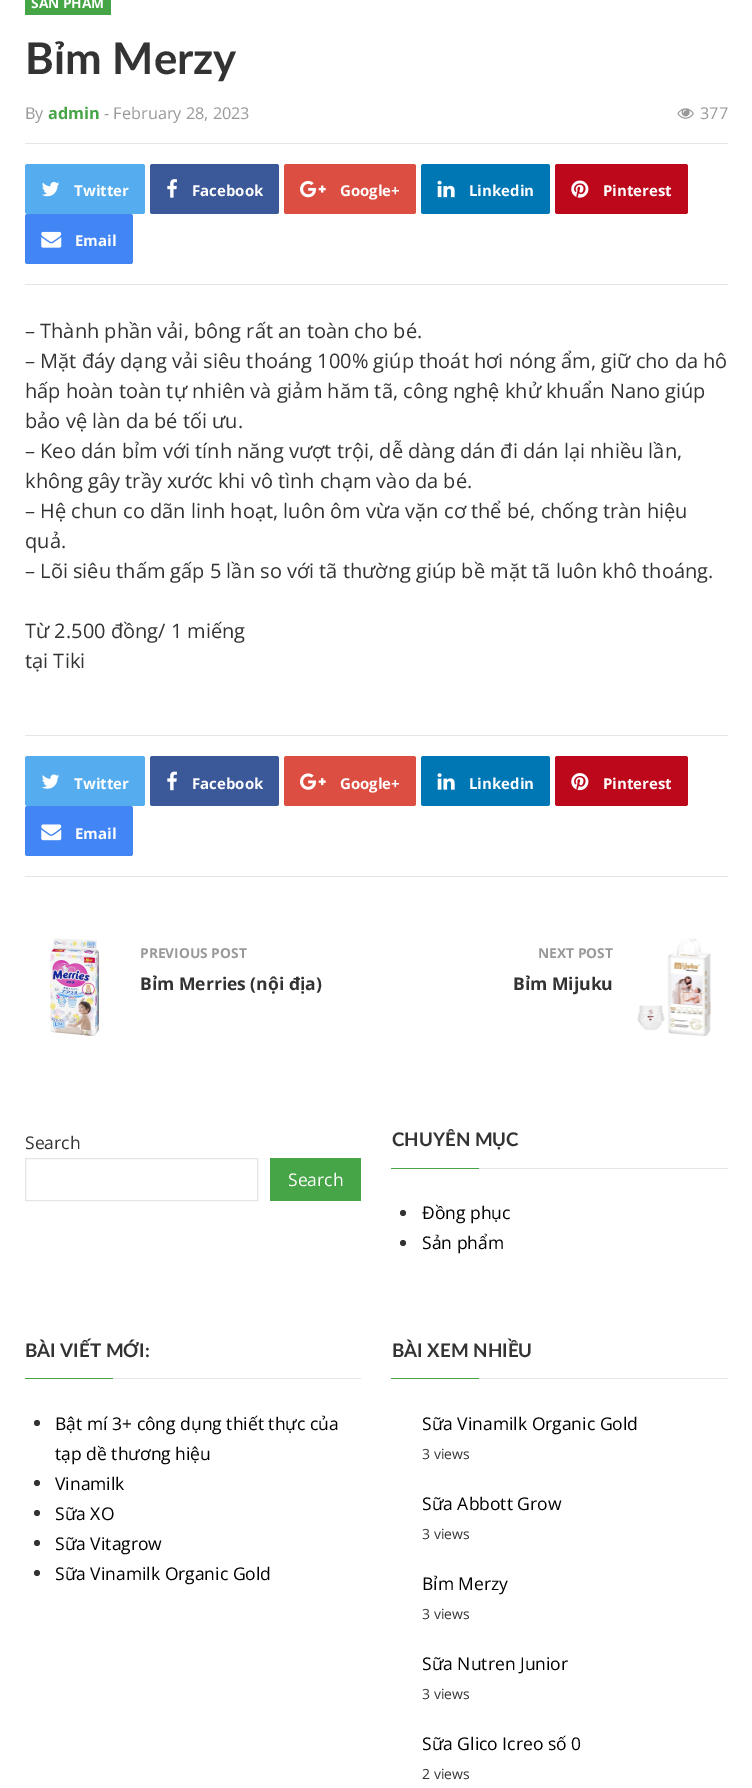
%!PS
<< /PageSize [752 1788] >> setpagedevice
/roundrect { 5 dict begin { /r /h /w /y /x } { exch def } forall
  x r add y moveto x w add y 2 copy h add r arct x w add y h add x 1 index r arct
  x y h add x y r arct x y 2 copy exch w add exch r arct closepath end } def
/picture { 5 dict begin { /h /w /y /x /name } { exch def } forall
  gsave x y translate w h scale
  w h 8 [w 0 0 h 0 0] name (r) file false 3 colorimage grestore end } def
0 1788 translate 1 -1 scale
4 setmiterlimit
1 setgray
0 0 752 1788 rectfill
0.275 0.647 0.275 setrgbcolor
25 0 86 15 rectfill
/OpenSans-Bold [13.75 0 0 -13.75 0 0] selectfont
1 setgray
31 8 moveto (SẢN PHẨM) show
/Lato-Bold [43.75 0 0 -43.75 0 0] selectfont
0.2 setgray
25 74 moveto (Bỉm Merzy) show
/OpenSans-Regular [16.25 0 0 -16.25 0 0] selectfont
0.6 setgray
25 119 moveto (By) show
/OpenSans-Bold [16.25 0 0 -16.25 0 0] selectfont
0.275 0.647 0.275 setrgbcolor
48 119 moveto (admin) show
/OpenSans-Regular [16.25 0 0 -16.25 0 0] selectfont
0.6 setgray
104 119 moveto (- February 28, 2023) show
(img1.rgb) 677 108 17 11 picture
700 119 moveto (377) show
0.898 setgray
25 143 703 1 rectfill
25 284 703 1 rectfill
0.333 0.675 0.933 setrgbcolor
25 164 120 50 2.5 roundrect fill
(img2.rgb) 42 182 18 15 picture
/OpenSans-Bold [15 0 0 -15 0 0] selectfont
1 setgray
74 196 moveto (Twitter) show
0.231 0.349 0.596 setrgbcolor
150 164 129 50 2.5 roundrect fill
(img3.rgb) 167 179 10 19 picture
1 setgray
192 196 moveto (Facebook) show
0.863 0.306 0.255 setrgbcolor
284 164 132 50 2.5 roundrect fill
(img4.rgb) 300 180 26 18 picture
1 setgray
340 196 moveto (Google+) show
0 0.467 0.71 setrgbcolor
421 164 129 50 2.5 roundrect fill
(img5.rgb) 437 180 18 18 picture
1 setgray
469 196 moveto (Linkedin) show
0.741 0.031 0.11 setrgbcolor
555 164 133 50 2.5 roundrect fill
(img6.rgb) 571 180 18 18 picture
1 setgray
603 196 moveto (Pinterest) show
0.259 0.522 0.957 setrgbcolor
25 214 108 50 2.5 roundrect fill
(img7.rgb) 41 231 21 17 picture
1 setgray
75 246 moveto (Email) show
/OpenSans-Regular [20 0 0 -20 0 0] selectfont
0.2 setgray
25 338 moveto (– Thành phần vải, bông rất an toàn cho bé.) show
25 368 moveto (– Mặt đáy dạng vải siêu thoáng 100% giúp thoát hơi nóng ẩm, giữ cho da hô) show
25 398 moveto (hấp hoàn toàn tự nhiên và giảm hăm tã, công nghệ khử khuẩn Nano giúp) show
25 428 moveto (bảo vệ làn da bé tối ưu.) show
25 458 moveto (– Keo dán bỉm với tính năng vượt trội, dễ dàng dán đi dán lại nhiều lần,) show
25 488 moveto (không gây trầy xước khi vô tình chạm vào da bé.) show
25 518 moveto (– Hệ chun co dãn linh hoạt, luôn ôm vừa vặn cơ thể bé, chống tràn hiệu) show
25 548 moveto (quả.) show
25 578 moveto (– Lõi siêu thấm gấp 5 lần so với tã thường giúp bề mặt tã luôn khô thoáng.) show
25 638 moveto (Từ 2.500 đồng/ 1 miếng) show
25 668 moveto (tại Tiki) show
0.898 setgray
25 735 703 1 rectfill
25 876 703 1 rectfill
0.333 0.675 0.933 setrgbcolor
25 756 120 50 2.5 roundrect fill
(img8.rgb) 42 774 18 15 picture
/OpenSans-Bold [15 0 0 -15 0 0] selectfont
1 setgray
74 789 moveto (Twitter) show
0.231 0.349 0.596 setrgbcolor
150 756 129 50 2.5 roundrect fill
(img9.rgb) 167 771 10 20 picture
1 setgray
192 789 moveto (Facebook) show
0.863 0.306 0.255 setrgbcolor
284 756 132 50 2.5 roundrect fill
(img10.rgb) 300 773 26 17 picture
1 setgray
340 789 moveto (Google+) show
0 0.467 0.71 setrgbcolor
421 756 129 50 2.5 roundrect fill
(img11.rgb) 437 773 18 17 picture
1 setgray
469 789 moveto (Linkedin) show
0.741 0.031 0.11 setrgbcolor
555 756 133 50 2.5 roundrect fill
(img12.rgb) 571 773 18 18 picture
1 setgray
603 789 moveto (Pinterest) show
0.259 0.522 0.957 setrgbcolor
25 806 108 50 2.5 roundrect fill
(img13.rgb) 41 824 21 17 picture
1 setgray
75 839 moveto (Email) show
(img14.rgb) 50 938 50 99 picture
/OpenSans-Bold [13.75 0 0 -13.75 0 0] selectfont
0.6 setgray
140 958 moveto (PREVIOUS POST) show
/OpenSans-Bold [17.5 0 0 -17.5 0 0] selectfont
0.2 setgray
140 990 moveto (Bỉm Merries \(nội địa\)) show
/OpenSans-Bold [13.75 0 0 -13.75 0 0] selectfont
0.6 setgray
538 958 moveto (NEXT POST) show
/OpenSans-Bold [17.5 0 0 -17.5 0 0] selectfont
0.2 setgray
513 990 moveto (Bỉm Mijuku) show
(img15.rgb) 637 938 74 98 picture
/OpenSans-Regular [17.5 0 0 -17.5 0 0] selectfont
25 1149 moveto (Search) show
0.898 setgray
25.5 1158.5 232 42 rectstroke
0.275 0.647 0.275 setrgbcolor
270 1158 91 43 rectfill
1 setgray
288 1186 moveto (Search) show
0.898 setgray
479 1168 249 1 rectfill
/Lato-Bold [18.75 0 0 -18.75 0 0] selectfont
0.2 setgray
392 1146 moveto (CHUYÊN MỤC) show
0.275 0.647 0.275 setrgbcolor
391 1168 88 1 rectfill
0.2 setgray
newpath 403 1213 3 0 360 arc closepath fill
/OpenSans-Regular [17.5 0 0 -17.5 0 0] selectfont
0 setgray
422 1219 moveto (Đồng phục) show
0.2 setgray
newpath 403 1243 3 0 360 arc closepath fill
0 setgray
422 1249 moveto (Sản phẩm) show
0.898 setgray
113 1378 248 1 rectfill
/Lato-Bold [18.75 0 0 -18.75 0 0] selectfont
0.2 setgray
25 1357 moveto (BÀI VIẾT MỚI:) show
0.275 0.647 0.275 setrgbcolor
25 1378 88 1 rectfill
0.2 setgray
newpath 37 1423 3 0 360 arc closepath fill
/OpenSans-Regular [17.5 0 0 -17.5 0 0] selectfont
0 setgray
55 1430 moveto (Bật mí 3+ công dụng thiết thực của) show
55 1460 moveto (tạp dề thương hiệu) show
0.2 setgray
newpath 37 1483 3 0 360 arc closepath fill
0 setgray
55 1490 moveto (Vinamilk) show
0.2 setgray
newpath 37 1513 3 0 360 arc closepath fill
0 setgray
55 1520 moveto (Sữa XO) show
0.2 setgray
newpath 37 1543 3 0 360 arc closepath fill
0 setgray
55 1550 moveto (Sữa Vitagrow) show
0.2 setgray
newpath 37 1573 3 0 360 arc closepath fill
0 setgray
55 1580 moveto (Sữa Vinamilk Organic Gold) show
0.898 setgray
479 1378 249 1 rectfill
/Lato-Bold [18.75 0 0 -18.75 0 0] selectfont
0.2 setgray
392 1357 moveto (BÀI XEM NHIỀU) show
0.275 0.647 0.275 setrgbcolor
391 1378 88 1 rectfill
/OpenSans-Regular [17.5 0 0 -17.5 0 0] selectfont
0 setgray
422 1430 moveto (Sữa Vinamilk Organic Gold) show
/OpenSans-Regular [14 0 0 -14 0 0] selectfont
0.2 setgray
422 1459 moveto (3 views) show
/OpenSans-Regular [17.5 0 0 -17.5 0 0] selectfont
0 setgray
422 1510 moveto (Sữa Abbott Grow) show
/OpenSans-Regular [14 0 0 -14 0 0] selectfont
0.2 setgray
422 1539 moveto (3 views) show
/OpenSans-Regular [17.5 0 0 -17.5 0 0] selectfont
0 setgray
422 1590 moveto (Bỉm Merzy) show
/OpenSans-Regular [14 0 0 -14 0 0] selectfont
0.2 setgray
422 1619 moveto (3 views) show
/OpenSans-Regular [17.5 0 0 -17.5 0 0] selectfont
0 setgray
422 1670 moveto (Sữa Nutren Junior) show
/OpenSans-Regular [14 0 0 -14 0 0] selectfont
0.2 setgray
422 1699 moveto (3 views) show
/OpenSans-Regular [17.5 0 0 -17.5 0 0] selectfont
0 setgray
422 1750 moveto (Sữa Glico Icreo số 0) show
/OpenSans-Regular [14 0 0 -14 0 0] selectfont
0.2 setgray
422 1779 moveto (2 views) show
showpage
